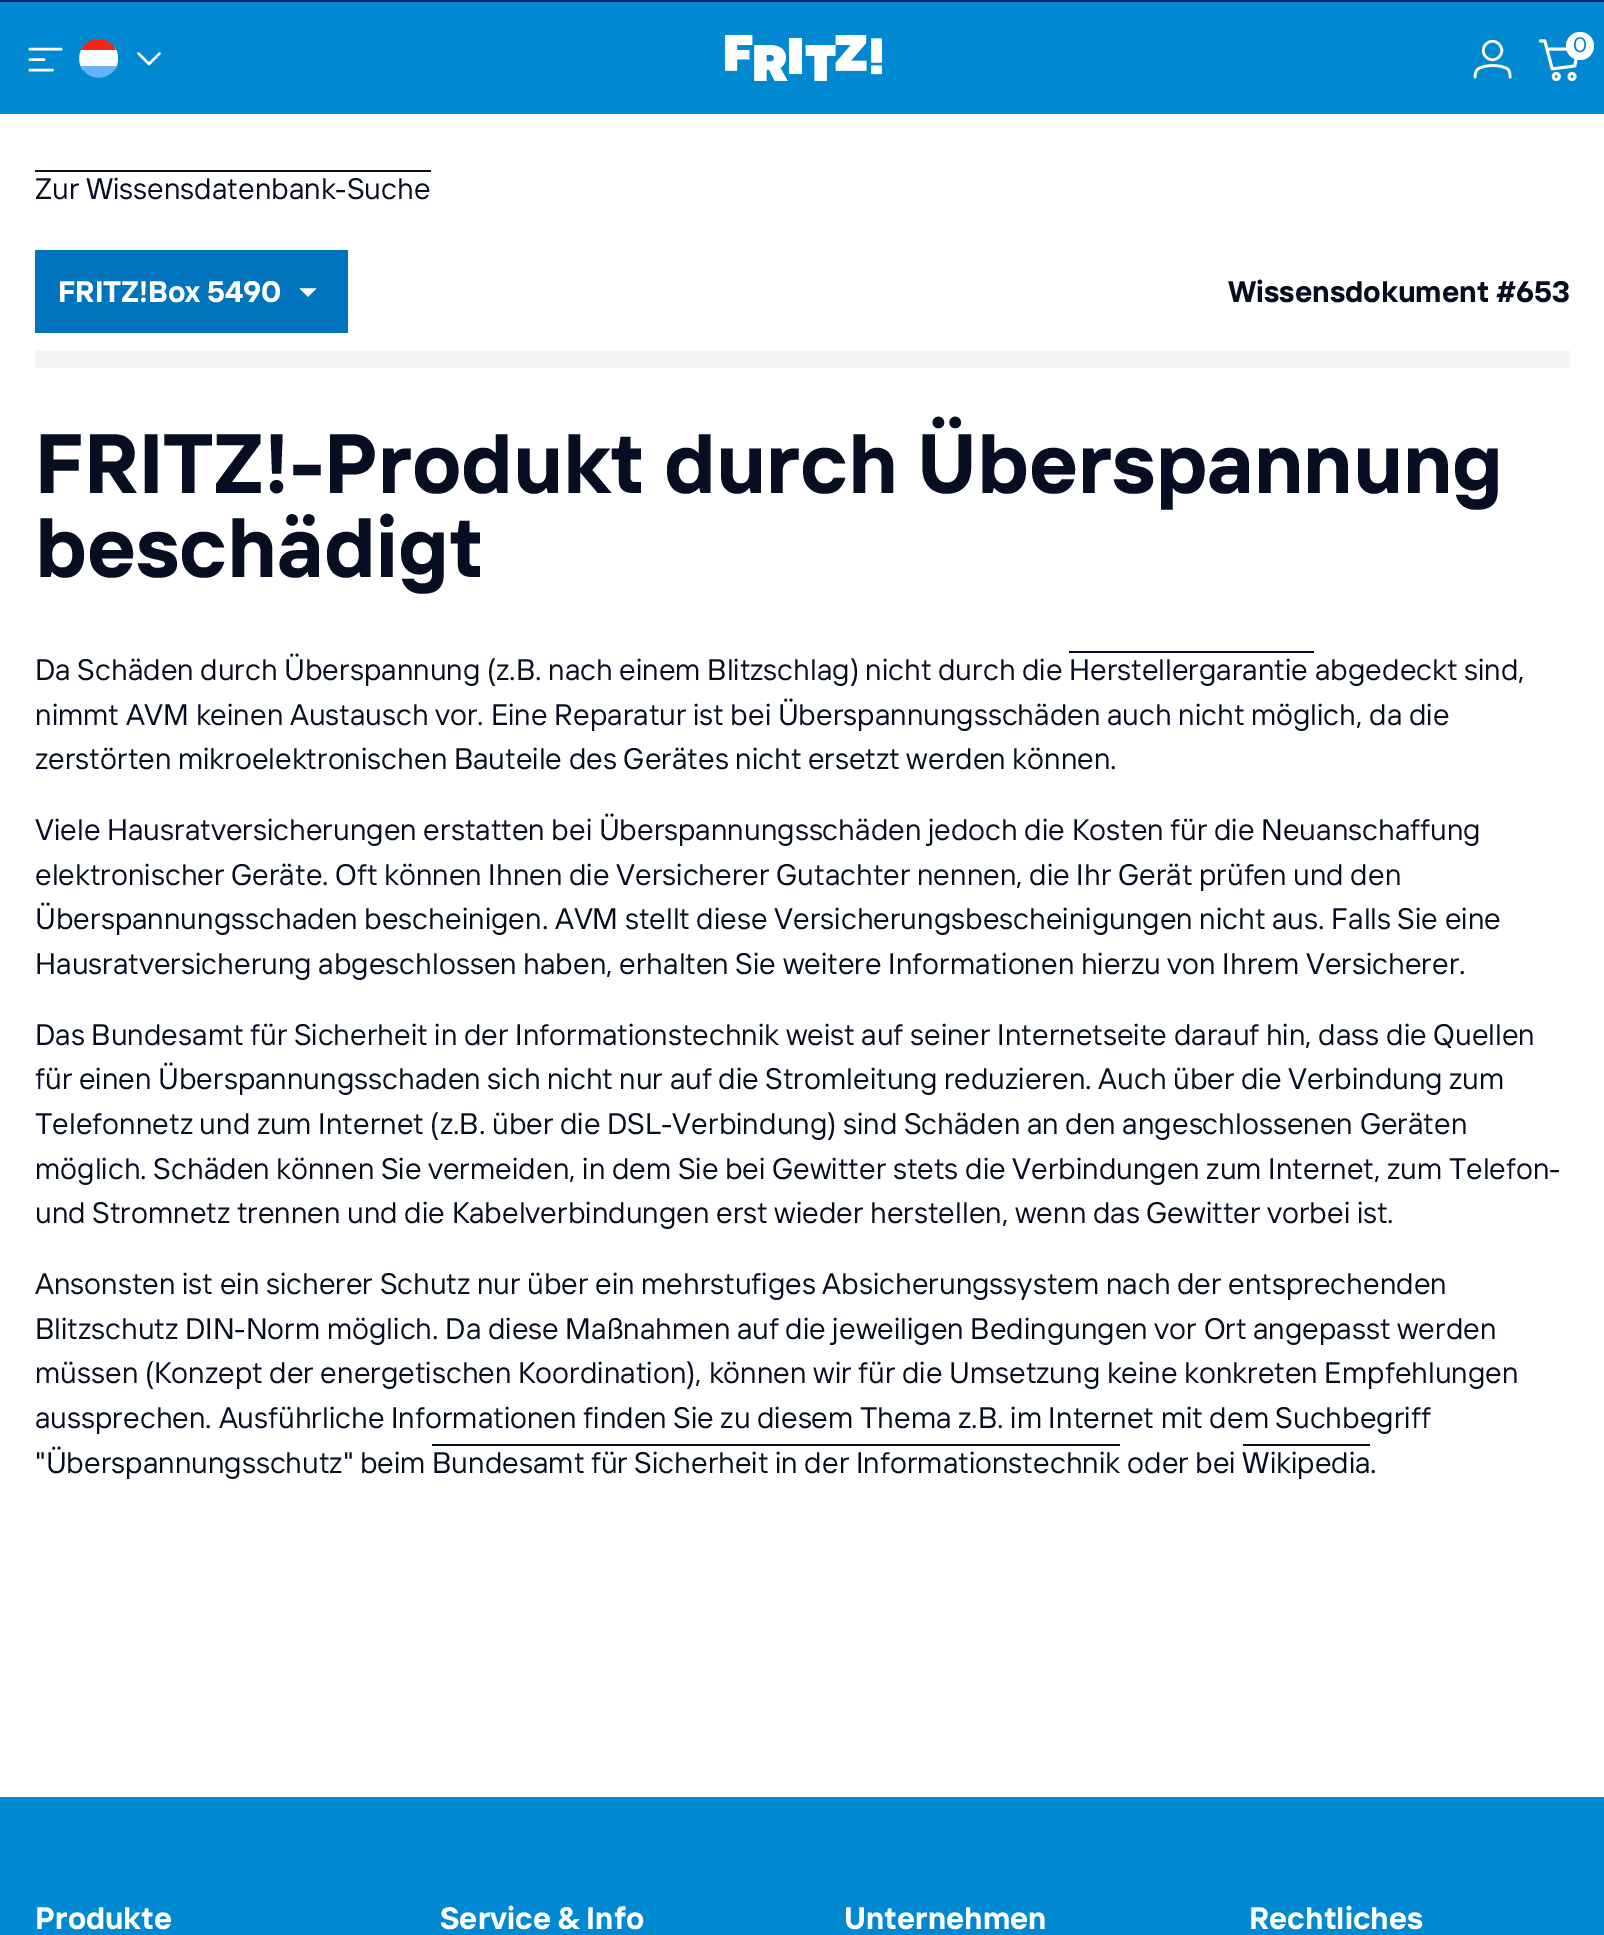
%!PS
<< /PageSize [1604 1935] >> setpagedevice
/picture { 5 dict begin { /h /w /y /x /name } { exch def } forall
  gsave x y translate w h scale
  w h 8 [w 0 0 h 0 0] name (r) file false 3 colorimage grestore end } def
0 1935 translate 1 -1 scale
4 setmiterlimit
1 setgray
0 0 1604 1935 rectfill
0 0.118 0.431 setrgbcolor
0 0 1604 2 rectfill
0 0.537 0.82 setrgbcolor
0 2 1604 112 rectfill
1 setgray
2.6 setlinewidth
1 setlinecap
newpath 30 49 moveto 61 49 lineto 30 59.5 moveto 44 59.5 lineto 30 70 moveto 52.5 70 lineto stroke
newpath 118 58.5 moveto 118 63 117 66.5 114 70 curveto 83 70 lineto 78 63.5 78 53.5 83 47 curveto 114.5 47 lineto 117 50.5 118 54 118 58.5 curveto closepath fill
0.396 0.698 1 setrgbcolor
newpath 116.5 66 moveto 81 66 lineto 87.5 81.5 110 81.5 116.5 66 curveto closepath fill
0.953 0.149 0.078 setrgbcolor
newpath 116 50 moveto 81 50 lineto 88 35.5 109 35.5 116 50 curveto closepath fill
1 setgray
2.4 setlinewidth
1 setlinejoin
newpath 138.5 53.5 moveto 149 64 lineto 159.5 53.5 lineto stroke
(img1.rgb) 725 35 157 46 picture
2.5 setlinewidth
0 setlinecap
0 setlinejoin
newpath 1492.5 50.5 9.25 0 360 arc closepath stroke
2.6 setlinewidth
1 setlinecap
newpath 1493 65.5 moveto 1497 65.5 1506 66.5 1508.5 70 curveto 1510 72 1510 74.5 1510 77 curveto 1493 65.5 moveto 1488.5 65.5 1479.5 66.5 1477 70 curveto 1475.5 72 1475 74.5 1475 77 curveto stroke
(img2.rgb) 1538 39 40 42 picture
newpath 1580 46 14 0 360 arc closepath fill
/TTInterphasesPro-Regular [21 0 0 -21 0 0] selectfont
0 0.537 0.82 setrgbcolor
1573 52 moveto (0) show
/TTInterphasesPro-Regular [29.75 0 0 -29.75 0 0] selectfont
0.027 0.055 0.129 setrgbcolor
35 199 moveto (Zur Wissensdatenbank-Suche) show
35 170 396 2 rectfill
0.961 setgray
35 350 1535 18 rectfill
0 0.455 0.741 setrgbcolor
35 250 313 83 rectfill
/TTInterphasesPro-Bold [29.75 0 0 -29.75 0 0] selectfont
1 setgray
58 302 moveto (FRITZ!Box 5490) show
(img3.rgb) 299 288 18 9 picture
0.027 0.055 0.129 setrgbcolor
1228 302 moveto (Wissensdokument #653) show
/TTInterphasesPro-Bold [84 0 0 -84 0 0] selectfont
35 493 moveto (FRITZ!-Produkt durch Überspannung) show
35 577 moveto (beschädigt) show
1069 651 245 2 rectfill
/TTInterphasesPro-Regular [29.75 0 0 -29.75 0 0] selectfont
35 680 moveto (Da Schäden durch Überspannung \(z.B. nach einem Blitzschlag\) nicht durch die Herstellergarantie) show
1315 680 moveto (abgedeckt sind,) show
35 725 moveto (nimmt AVM keinen Austausch vor. Eine Reparatur ist bei Überspannungsschäden auch nicht möglich, da die) show
35 769 moveto (zerstörten mikroelektronischen Bauteile des Gerätes nicht ersetzt werden können.) show
35 840 moveto (Viele Hausratversicherungen erstatten bei Überspannungsschäden jedoch die Kosten für die Neuanschaffung) show
35 885 moveto (elektronischer Geräte. Oft können Ihnen die Versicherer Gutachter nennen, die Ihr Gerät prüfen und den) show
35 929 moveto (Überspannungsschaden bescheinigen. AVM stellt diese Versicherungsbescheinigungen nicht aus. Falls Sie eine) show
35 974 moveto (Hausratversicherung abgeschlossen haben, erhalten Sie weitere Informationen hierzu von Ihrem Versicherer.) show
35 1045 moveto (Das Bundesamt für Sicherheit in der Informationstechnik weist auf seiner Internetseite darauf hin, dass die Quellen) show
35 1089 moveto (für einen Überspannungsschaden sich nicht nur auf die Stromleitung reduzieren. Auch über die Verbindung zum) show
35 1134 moveto (Telefonnetz und zum Internet \(z.B. über die DSL-Verbindung\) sind Schäden an den angeschlossenen Geräten) show
35 1179 moveto (möglich. Schäden können Sie vermeiden, in dem Sie bei Gewitter stets die Verbindungen zum Internet, zum Telefon-) show
35 1223 moveto (und Stromnetz trennen und die Kabelverbindungen erst wieder herstellen, wenn das Gewitter vorbei ist.) show
35 1294 moveto (Ansonsten ist ein sicherer Schutz nur über ein mehrstufiges Absicherungssystem nach der entsprechenden) show
35 1339 moveto (Blitzschutz DIN-Norm möglich. Da diese Maßnahmen auf die jeweiligen Bedingungen vor Ort angepasst werden) show
35 1383 moveto (müssen \(Konzept der energetischen Koordination\), können wir für die Umsetzung keine konkreten Empfehlungen) show
35 1428 moveto (aussprechen. Ausführliche Informationen finden Sie zu diesem Thema z.B. im Internet mit dem Suchbegriff) show
432 1444 688 2 rectfill
1243 1444 127 2 rectfill
35 1473 moveto ("Überspannungsschutz" beim Bundesamt für Sicherheit in der Informationstechnik) show
1127 1473 moveto (oder bei Wikipedia) show
1370 1473 moveto (.) show
0 0.537 0.82 setrgbcolor
0 1797 1604 138 rectfill
/TTInterphasesPro-Bold [31 0 0 -31 0 0] selectfont
1 setgray
35 1929 moveto (Produkte) show
440 1929 moveto (Service & Info) show
844 1929 moveto (Unternehmen) show
1249 1929 moveto (Rechtliches) show
showpage
